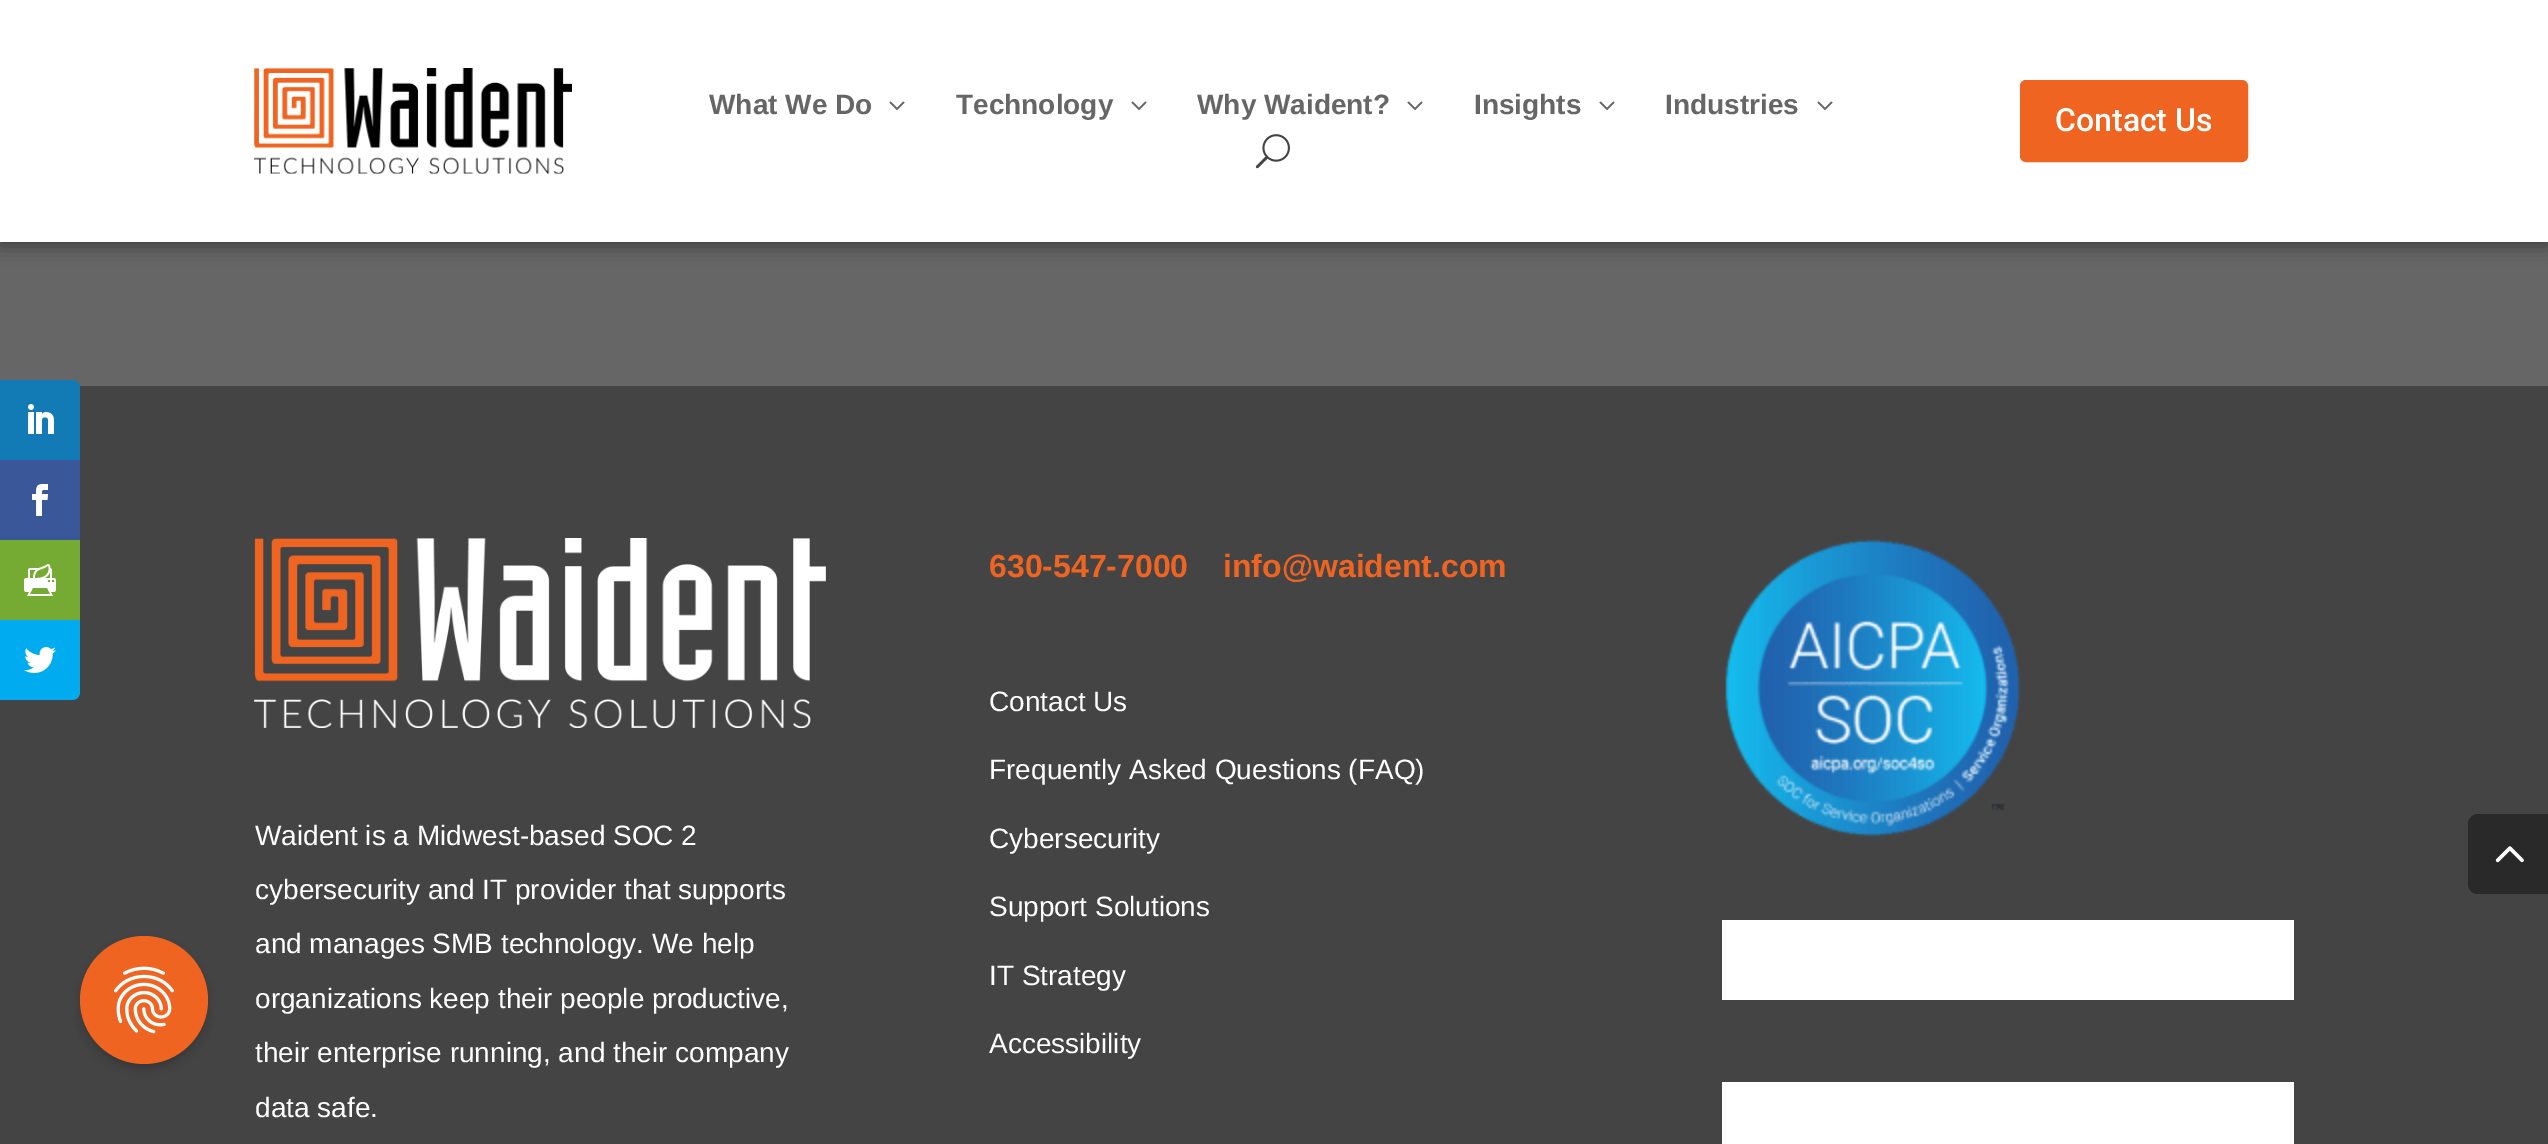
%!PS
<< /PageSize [2548 1144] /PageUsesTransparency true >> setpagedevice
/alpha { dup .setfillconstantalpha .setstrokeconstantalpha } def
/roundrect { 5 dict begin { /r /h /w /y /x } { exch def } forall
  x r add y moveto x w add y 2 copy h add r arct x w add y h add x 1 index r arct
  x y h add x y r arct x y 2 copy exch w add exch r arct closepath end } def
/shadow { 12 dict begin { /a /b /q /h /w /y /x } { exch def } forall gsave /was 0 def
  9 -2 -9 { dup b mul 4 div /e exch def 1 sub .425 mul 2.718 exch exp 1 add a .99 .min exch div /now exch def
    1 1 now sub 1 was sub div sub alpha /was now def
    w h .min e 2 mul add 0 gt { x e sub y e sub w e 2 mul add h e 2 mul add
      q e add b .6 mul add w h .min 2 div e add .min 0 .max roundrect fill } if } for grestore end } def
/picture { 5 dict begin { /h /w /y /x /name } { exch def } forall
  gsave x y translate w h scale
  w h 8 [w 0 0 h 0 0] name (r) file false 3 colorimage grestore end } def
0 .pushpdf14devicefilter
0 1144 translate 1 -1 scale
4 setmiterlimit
0.4 setgray
0 0 2548 1144 rectfill
0.267 setgray
0 386 2548 758 rectfill
0.071 0.482 0.714 setrgbcolor
newpath 0 380 moveto 72 380 lineto 76.5 380 80 383.5 80 388 curveto 80 460 lineto 0 460 lineto closepath fill
(img1.rgb) 28 404 26 30 picture
0.227 0.341 0.604 setrgbcolor
0 460 80 80 rectfill
(img2.rgb) 32 484 17 32 picture
0.459 0.667 0.2 setrgbcolor
0 540 80 80 rectfill
(img3.rgb) 24 564 32 32 picture
0 0.671 0.941 setrgbcolor
newpath 0 620 moveto 80 620 lineto 80 692 lineto 80 696.5 76.5 700 72 700 curveto 0 700 lineto closepath fill
(img4.rgb) 24 647 32 26 picture
0 setgray
0 4 2548 242 0 9 0.38 shadow
1 setgray
0 0 2548 242 rectfill
(img5.rgb) 254 68 318 106 picture
/LiberationSans-Bold [28 0 0 -28 0 0] selectfont
0.4 setgray
709 114 moveto (What We Do) show
(img6.rgb) 889 101 16 9 picture
956 114 moveto (Technology) show
(img6.rgb) 1131 101 16 9 picture
1197 114 moveto (Why Waident?) show
(img6.rgb) 1407 101 16 9 picture
1474 114 moveto (Insights) show
(img6.rgb) 1599 101 16 9 picture
1665 114 moveto (Industries) show
(img6.rgb) 1817 101 16 9 picture
(img7.rgb) 1255 134 35 35 picture
0.937 0.392 0.129 setrgbcolor
2022 82 224 78 4 roundrect gsave fill grestore
4 setlinewidth
stroke
/Roboto-Medium [32 0 0 -32 0 0] selectfont
1 setgray
2055 131 moveto (Contact Us) show
(img8.rgb) 254 538 572 190 picture
/LiberationSans-Regular [28 0 0 -28 0 0] selectfont
255 845 moveto (Waident is a Midwest-based SOC 2) show
255 899 moveto (cybersecurity and IT provider that supports) show
255 953 moveto (and manages SMB technology. We help) show
255 1008 moveto (organizations keep their people productive,) show
255 1062 moveto (their enterprise running, and their company) show
255 1117 moveto (data safe.) show
/LiberationSans-Bold [32 0 0 -32 0 0] selectfont
0.937 0.392 0.129 setrgbcolor
989 577 moveto (630-547-7000) show
1223 577 moveto (info@waident.com) show
/LiberationSans-Regular [28 0 0 -28 0 0] selectfont
1 setgray
989 711 moveto (Contact Us) show
989 779 moveto (Frequently Asked Questions \(FAQ\)) show
989 848 moveto (Cybersecurity) show
989 916 moveto (Support Solutions) show
989 985 moveto (IT Strategy) show
989 1053 moveto (Accessibility) show
(img9.rgb) 1725 539 296 298 picture
1722 920 572 80 rectfill
1722 1082 572 62 rectfill
0.161 setgray
newpath 2478 814 moveto 2548 814 lineto 2548 894 lineto 2478 894 lineto 2472.5 894 2468 889.5 2468 884 curveto 2468 824 lineto 2468 818.5 2472.5 814 2478 814 curveto closepath fill
(img10.rgb) 2495 846 29 17 picture
0 setgray
82 944 124 124 62 5 0.2 shadow
0.937 0.392 0.129 setrgbcolor
newpath 144 1000 64 0 360 arc closepath fill
(img11.rgb) 114 966 60 68 picture
.poppdf14devicefilter showpage
